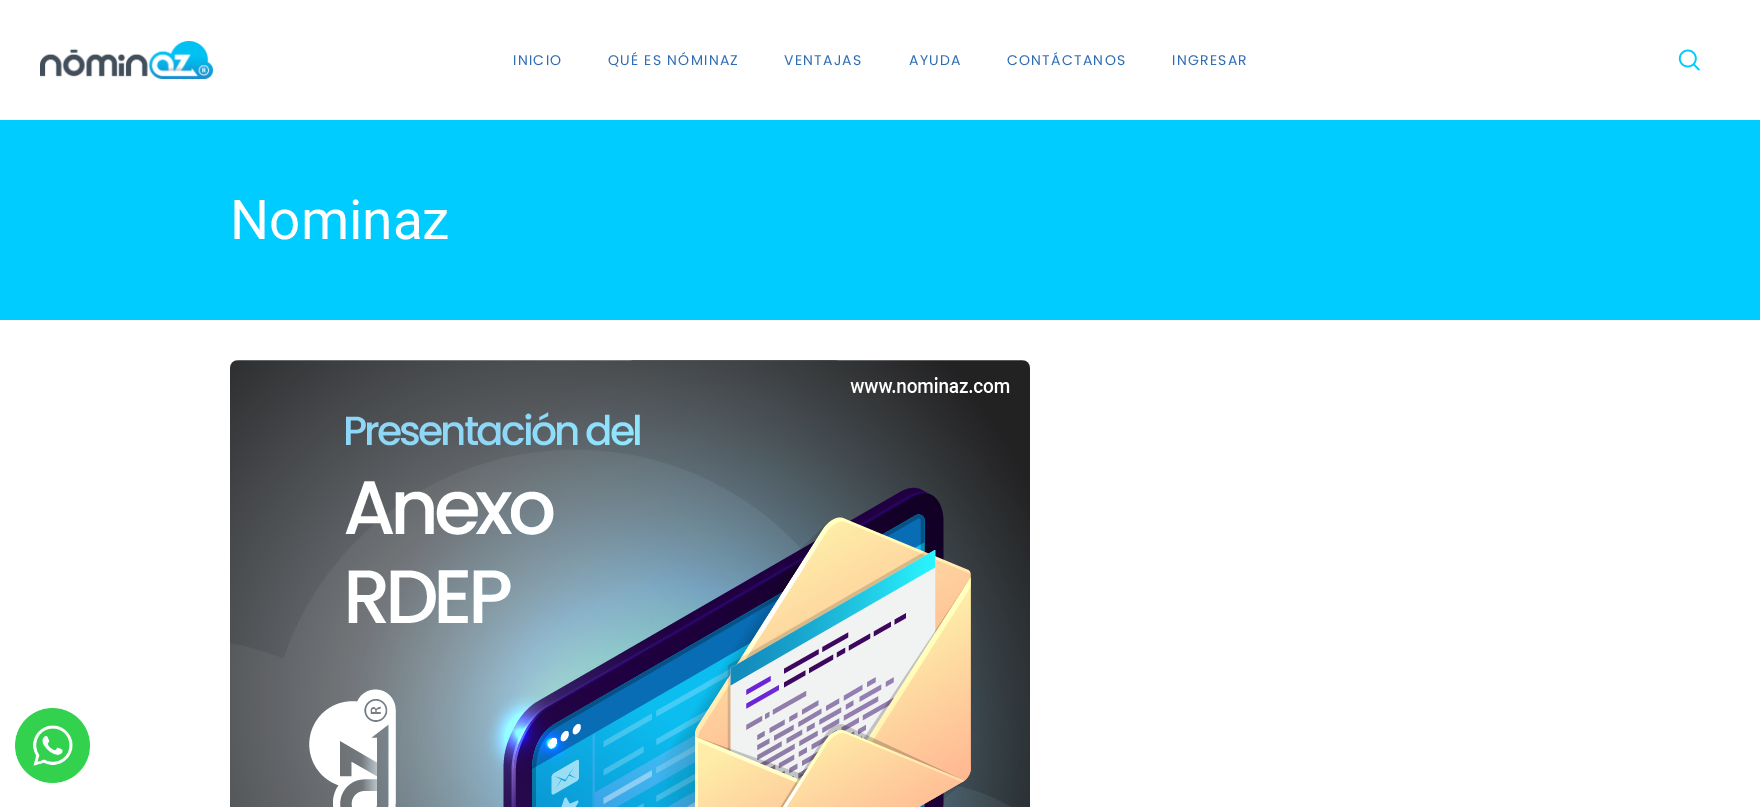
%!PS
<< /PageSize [1760 807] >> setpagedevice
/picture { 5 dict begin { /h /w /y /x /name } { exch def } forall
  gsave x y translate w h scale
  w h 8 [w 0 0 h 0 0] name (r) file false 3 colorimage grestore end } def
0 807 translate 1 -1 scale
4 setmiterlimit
1 setgray
0 0 1760 807 rectfill
(img1.rgb) 40 41 173 38 picture
/Poppins-Regular [14 0 0 -14 0 0] selectfont
0.176 0.424 0.71 setrgbcolor
513 65 moveto 1.25 0 (INICIO) ashow
608 65 moveto 1.25 0 (QUÉ ES NÓMINAZ) ashow
784 65 moveto 1.25 0 (VENTAJAS) ashow
909 65 moveto 1.25 0 (AYUDA) ashow
1007 65 moveto 1.25 0 (CONTÁCTANOS) ashow
1172 65 moveto 1.25 0 (INGRESAR) ashow
(img2.rgb) 1678 49 22 22 picture
0 0.8 1 setrgbcolor
0 120 1760 200 rectfill
/Roboto-Regular [55 0 0 -55 0 0] selectfont
1 setgray
230 239 moveto (Nominaz) show
(img3.rgb) 230 360 800 447 picture
(img4.rgb) 15 708 75 75 picture
showpage
